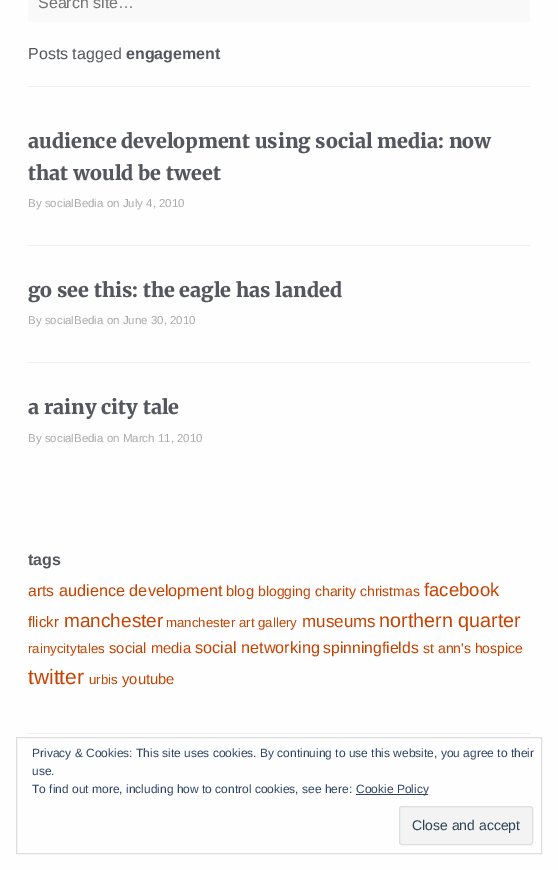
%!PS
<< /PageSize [558 870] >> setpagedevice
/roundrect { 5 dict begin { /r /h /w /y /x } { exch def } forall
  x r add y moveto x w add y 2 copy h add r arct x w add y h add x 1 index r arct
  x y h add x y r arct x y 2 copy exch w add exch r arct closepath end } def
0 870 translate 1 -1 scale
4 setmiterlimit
0.996 setgray
0 0 558 870 rectfill
0.976 setgray
28 -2 502 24 2 roundrect fill
/LiberationSans-Regular [16 0 0 -16 0 0] selectfont
0.459 setgray
38 8 moveto (Search site…) show
0.937 setgray
28 86 502 1 rectfill
0.329 0.341 0.365 setrgbcolor
28 59 moveto (Posts tagged) show
/LiberationSans-Bold [16 0 0 -16 0 0] selectfont
126 59 moveto (engagement) show
0.937 setgray
28 245 502 1 rectfill
/Merriweather-Black [19.6 0 0 -19.6 0 0] selectfont
0.329 0.341 0.365 setrgbcolor
28 148 moveto (audience development using social media: now) show
28 180 moveto (that would be tweet) show
/LiberationSans-Regular [11.5 0 0 -11.5 0 0] selectfont
0.667 setgray
28 207 moveto (By socialBedia on July 4, 2010) show
0.937 setgray
28 362 502 1 rectfill
/Merriweather-Black [19.6 0 0 -19.6 0 0] selectfont
0.329 0.341 0.365 setrgbcolor
28 297 moveto (go see this: the eagle has landed) show
/LiberationSans-Regular [11.5 0 0 -11.5 0 0] selectfont
0.667 setgray
28 324 moveto (By socialBedia on June 30, 2010) show
/Merriweather-Black [19.6 0 0 -19.6 0 0] selectfont
0.329 0.341 0.365 setrgbcolor
28 414 moveto (a rainy city tale) show
/LiberationSans-Regular [11.5 0 0 -11.5 0 0] selectfont
0.667 setgray
28 442 moveto (By socialBedia on March 11, 2010) show
/LiberationSans-Bold [16 0 0 -16 0 0] selectfont
0.329 0.341 0.365 setrgbcolor
28 565 moveto (tags) show
/LiberationSans-Regular [15.75 0 0 -15.75 0 0] selectfont
0.773 0.259 0 setrgbcolor
28 596 moveto (arts) show
/LiberationSans-Regular [16.25 0 0 -16.25 0 0] selectfont
59 596 moveto (audience development) show
/LiberationSans-Regular [14.75 0 0 -14.75 0 0] selectfont
226 596 moveto (blog) show
/LiberationSans-Regular [14 0 0 -14 0 0] selectfont
258 596 moveto (blogging charity christmas) show
/LiberationSans-Regular [18.5 0 0 -18.5 0 0] selectfont
424 596 moveto (facebook) show
/LiberationSans-Regular [15 0 0 -15 0 0] selectfont
28 627 moveto (flickr) show
/LiberationSans-Regular [19 0 0 -19 0 0] selectfont
64 627 moveto (manchester) show
/LiberationSans-Regular [13.25 0 0 -13.25 0 0] selectfont
166 627 moveto (manchester art gallery) show
/LiberationSans-Regular [17 0 0 -17 0 0] selectfont
302 627 moveto (museums) show
/LiberationSans-Regular [19.75 0 0 -19.75 0 0] selectfont
379 627 moveto (northern quarter) show
/LiberationSans-Regular [13.25 0 0 -13.25 0 0] selectfont
28 653 moveto (rainycitytales) show
/LiberationSans-Regular [14.75 0 0 -14.75 0 0] selectfont
109 653 moveto (social media) show
/LiberationSans-Regular [16.25 0 0 -16.25 0 0] selectfont
195 653 moveto (social networking) show
/LiberationSans-Regular [15.75 0 0 -15.75 0 0] selectfont
323 653 moveto (spinningfields) show
/LiberationSans-Regular [14 0 0 -14 0 0] selectfont
423 653 moveto (st ann's hospice) show
/LiberationSans-Regular [21 0 0 -21 0 0] selectfont
28 684 moveto (twitter) show
/LiberationSans-Regular [13.25 0 0 -13.25 0 0] selectfont
89 684 moveto (urbis) show
/LiberationSans-Regular [14.75 0 0 -14.75 0 0] selectfont
122 684 moveto (youtube) show
0.937 setgray
28 733 502 1 rectfill
0.871 setgray
16.5 737.5 525 116 rectstroke
/LiberationSans-Regular [12 0 0 -12 0 0] selectfont
0.18 0.267 0.404 setrgbcolor
32 757 moveto (Privacy & Cookies: This site uses cookies. By continuing to use this website, you agree to their) show
32 775 moveto (use.) show
32 793 moveto (To find out more, including how to control cookies, see here:) show
356 794 72 1 rectfill
356 793 moveto (Cookie Policy) show
0.953 setgray
399.5 806.5 133 38 2.5 roundrect gsave fill grestore
0.871 setgray
stroke
/LiberationSans-Regular [14 0 0 -14 0 0] selectfont
0.18 0.267 0.325 setrgbcolor
412 830 moveto (Close and accept) show
showpage
